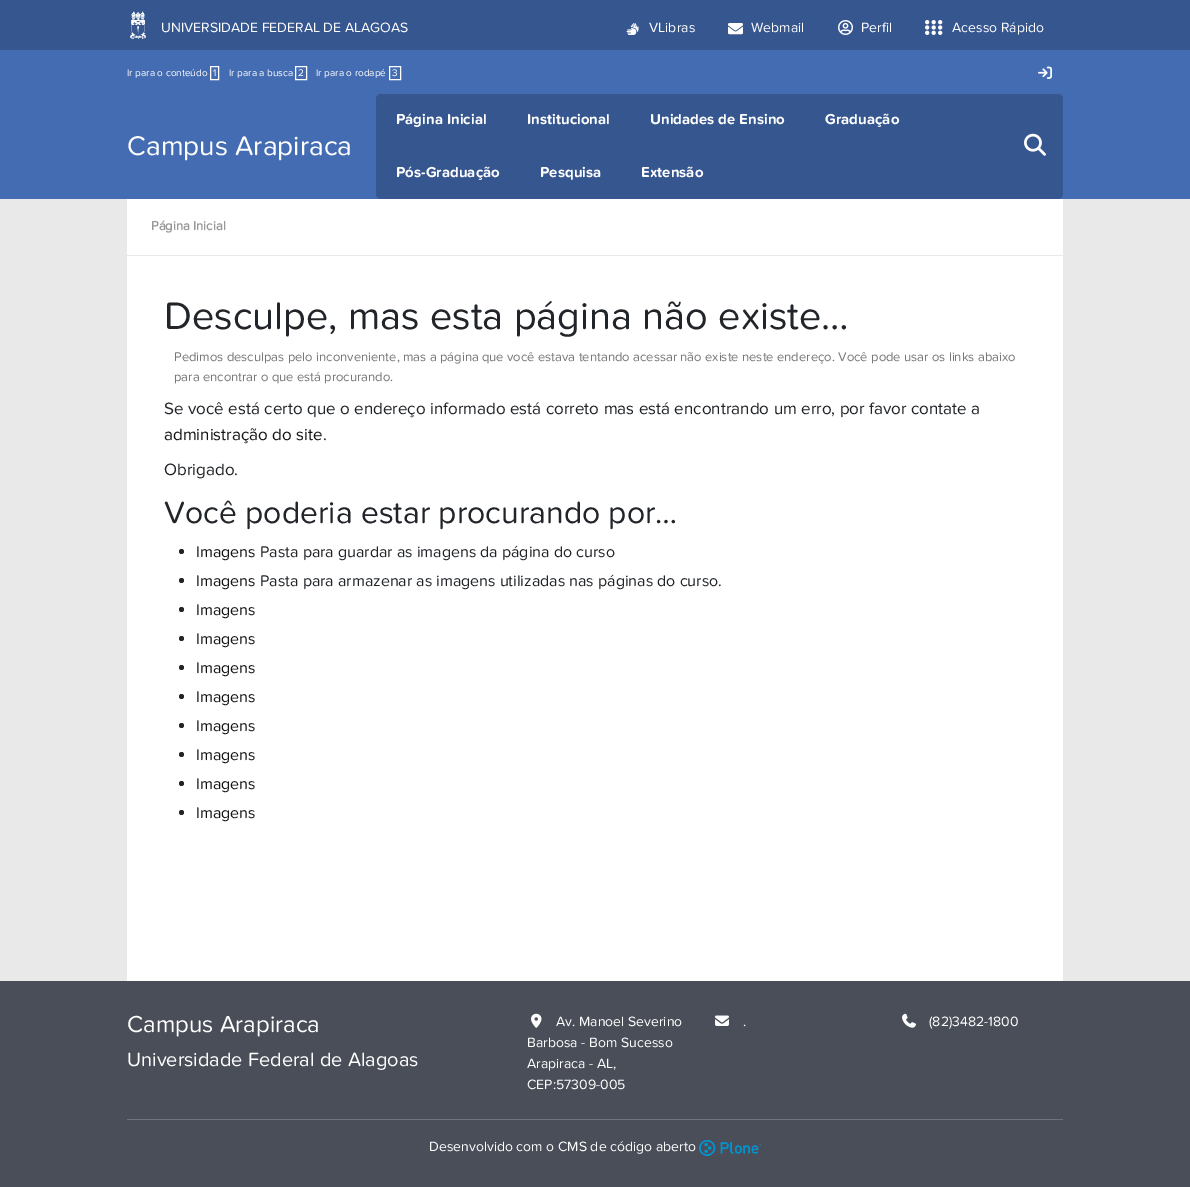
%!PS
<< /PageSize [1190 1187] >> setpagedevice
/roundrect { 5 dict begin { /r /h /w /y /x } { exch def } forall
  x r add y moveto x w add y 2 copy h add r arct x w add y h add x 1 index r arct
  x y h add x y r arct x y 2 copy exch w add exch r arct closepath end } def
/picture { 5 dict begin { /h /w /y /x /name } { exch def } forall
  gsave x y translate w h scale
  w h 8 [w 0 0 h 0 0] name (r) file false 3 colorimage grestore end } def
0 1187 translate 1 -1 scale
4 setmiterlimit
0.914 setgray
0 0 1190 1187 rectfill
0.212 0.337 0.561 setrgbcolor
0 0 1190 50 rectfill
(img1.rgb) 130 11 16 28 picture
/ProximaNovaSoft-Regular [14 0 0 -14 0 0] selectfont
1 setgray
161 32 moveto (UNIVERSIDADE FEDERAL DE ALAGOAS) show
(img2.rgb) 626 23 13 12 picture
649 32 moveto (VLibras) show
(img3.rgb) 728 23 15 12 picture
751 32 moveto (Webmail) show
(img4.rgb) 838 20 15 15 picture
861 32 moveto (Perfil) show
(img5.rgb) 925 20 18 15 picture
952 32 moveto (Acesso Rápido) show
0.267 0.424 0.702 setrgbcolor
0 50 1190 149 rectfill
/ProximaNovaSoft-Regular [10 0 0 -10 0 0] selectfont
1 setgray
127 76 moveto (Ir para o conteúdo) show
210.5 66.5 8 13 rectstroke
213 76 moveto (1) show
229 76 moveto (Ir para a busca) show
295.5 66.5 11 13 rectstroke
298 76 moveto (2) show
316 76 moveto (Ir para o rodapé) show
389.5 66.5 11 13 rectstroke
392 76 moveto (3) show
(img6.rgb) 1038 66 14 13 picture
/ProximaNovaSoft-Regular [28 0 0 -28 0 0] selectfont
127 155 moveto (Campus Arapiraca) show
0.212 0.337 0.561 setrgbcolor
376 94 687 105 5 roundrect fill
/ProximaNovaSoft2-Bold [15 0 0 -15 0 0] selectfont
1 setgray
396 124 moveto (Página Inicial) show
527 124 moveto (Institucional) show
650 124 moveto (Unidades de Ensino) show
825 124 moveto (Graduação) show
396 177 moveto (Pós-Graduação) show
540 177 moveto (Pesquisa) show
641 177 moveto (Extensão) show
(img7.rgb) 1024 133 22 23 picture
127 199 936 782 rectfill
0.914 setgray
127 255 936 1 rectfill
/ProximaNovaSoft-Bold [13 0 0 -13 0 0] selectfont
0.596 setgray
151 230 moveto (Página Inicial) show
/ProximaNovaSoft-Regular [39.8 0 0 -39.8 0 0] selectfont
0.129 0.145 0.161 setrgbcolor
164 329 moveto (Desculpe, mas esta página não existe…) show
/ProximaNovaSoft-Regular [13 0 0 -13 0 0] selectfont
0.467 setgray
174 361 moveto (Pedimos desculpas pelo inconveniente, mas a página que você estava tentando acessar não existe neste endereço. Você pode usar os links abaixo) show
174 381 moveto (para encontrar o que está procurando.) show
/ProximaNovaSoft-Regular [17 0 0 -17 0 0] selectfont
0.129 0.145 0.161 setrgbcolor
164 414 moveto (Se você está certo que o endereço informado está correto mas está encontrando um erro, por favor contate a) show
0.082 setgray
164 440 moveto (administração do site) show
0.129 0.145 0.161 setrgbcolor
323 440 moveto (.) show
164 475 moveto (Obrigado.) show
/ProximaNovaSoft-Regular [31.9 0 0 -31.9 0 0] selectfont
164 523 moveto (Você poderia estar procurando por…) show
newpath 181.5 551.5 2.5 0 360 arc closepath fill
/ProximaNovaSoft-Regular [16 0 0 -16 0 0] selectfont
0.082 setgray
196 557 moveto (Imagens) show
0.129 0.145 0.161 setrgbcolor
260 557 moveto (Pasta para guardar as imagens da página do curso) show
newpath 181.5 580.5 2.5 0 360 arc closepath fill
0.082 setgray
196 586 moveto (Imagens) show
0.129 0.145 0.161 setrgbcolor
260 586 moveto (Pasta para armazenar as imagens utilizadas nas páginas do curso.) show
newpath 181.5 609.5 2.5 0 360 arc closepath fill
0.082 setgray
196 615 moveto (Imagens) show
0.129 0.145 0.161 setrgbcolor
newpath 181.5 638.5 2.5 0 360 arc closepath fill
0.082 setgray
196 644 moveto (Imagens) show
0.129 0.145 0.161 setrgbcolor
newpath 181.5 667.5 2.5 0 360 arc closepath fill
0.082 setgray
196 673 moveto (Imagens) show
0.129 0.145 0.161 setrgbcolor
newpath 181.5 696.5 2.5 0 360 arc closepath fill
0.082 setgray
196 702 moveto (Imagens) show
0.129 0.145 0.161 setrgbcolor
newpath 181.5 725.5 2.5 0 360 arc closepath fill
0.082 setgray
196 731 moveto (Imagens) show
0.129 0.145 0.161 setrgbcolor
newpath 181.5 754.5 2.5 0 360 arc closepath fill
0.082 setgray
196 760 moveto (Imagens) show
0.129 0.145 0.161 setrgbcolor
newpath 181.5 783.5 2.5 0 360 arc closepath fill
0.082 setgray
196 789 moveto (Imagens) show
0.129 0.145 0.161 setrgbcolor
newpath 181.5 812.5 2.5 0 360 arc closepath fill
0.082 setgray
196 818 moveto (Imagens) show
0.29 0.306 0.345 setrgbcolor
0 981 1190 206 rectfill
/ProximaNovaSoft-Regular [24 0 0 -24 0 0] selectfont
1 setgray
127 1032 moveto (Campus Arapiraca) show
/ProximaNovaSoft-Regular [20 0 0 -20 0 0] selectfont
127 1066 moveto (Universidade Federal de Alagoas) show
(img8.rgb) 531 1013 11 15 picture
/ProximaNovaSoft-Regular [14 0 0 -14 0 0] selectfont
556 1026 moveto (Av. Manoel Severino) show
527 1047 moveto (Barbosa - Bom Sucesso) show
527 1068 moveto (Arapiraca - AL,) show
527 1089 moveto (CEP:57309-005) show
(img9.rgb) 715 1015 14 11 picture
743 1026 moveto (.) show
(img10.rgb) 902 1013 14 15 picture
929 1026 moveto (\(82\)3482-1800) show
0.424 0.459 0.49 setrgbcolor
127 1119 936 1 rectfill
1 setgray
429 1151 moveto (Desenvolvido com o CMS de código aberto) show
(img11.rgb) 699 1140 62 16 picture
showpage
